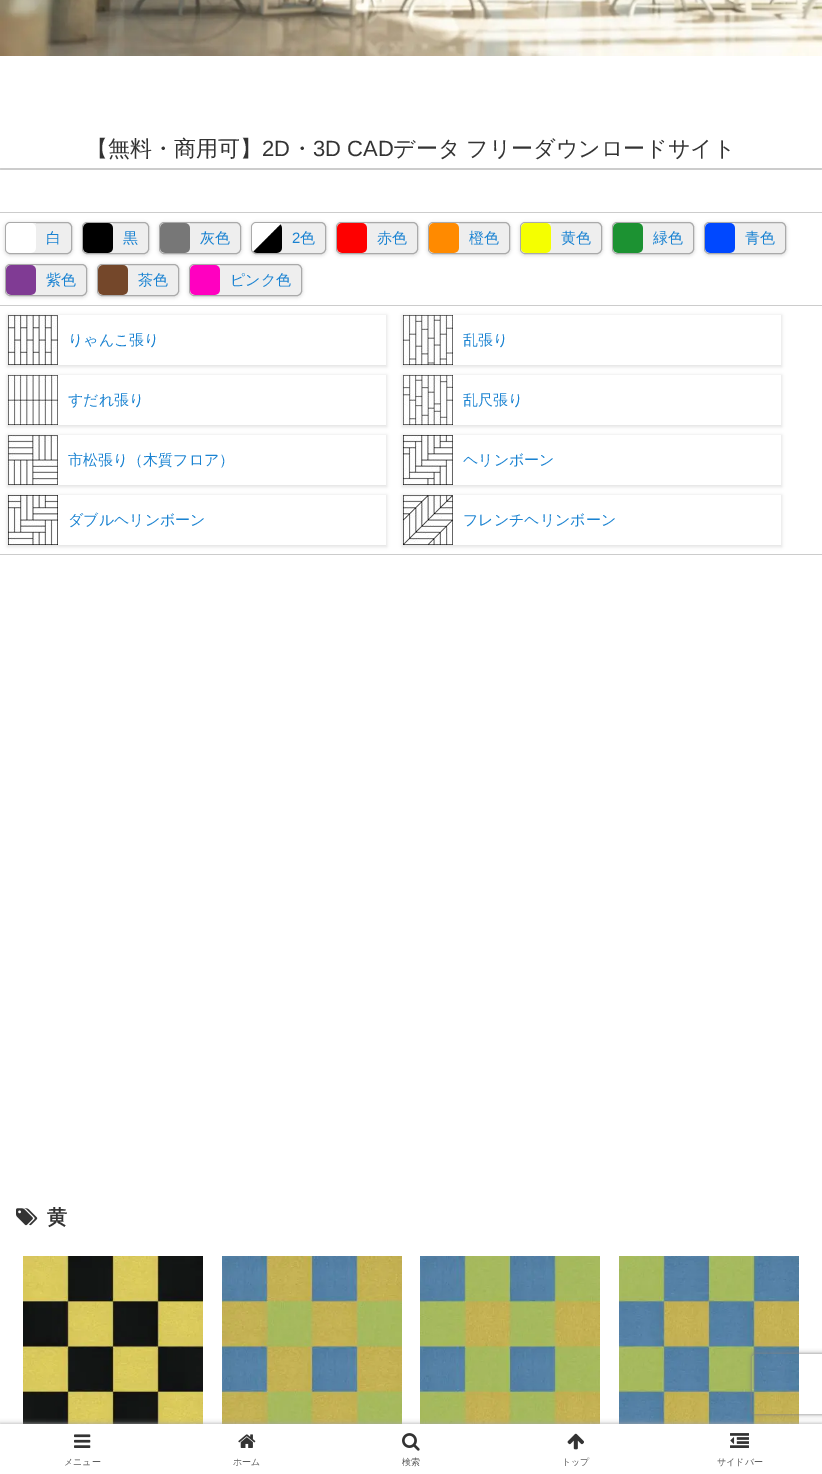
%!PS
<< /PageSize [822 1474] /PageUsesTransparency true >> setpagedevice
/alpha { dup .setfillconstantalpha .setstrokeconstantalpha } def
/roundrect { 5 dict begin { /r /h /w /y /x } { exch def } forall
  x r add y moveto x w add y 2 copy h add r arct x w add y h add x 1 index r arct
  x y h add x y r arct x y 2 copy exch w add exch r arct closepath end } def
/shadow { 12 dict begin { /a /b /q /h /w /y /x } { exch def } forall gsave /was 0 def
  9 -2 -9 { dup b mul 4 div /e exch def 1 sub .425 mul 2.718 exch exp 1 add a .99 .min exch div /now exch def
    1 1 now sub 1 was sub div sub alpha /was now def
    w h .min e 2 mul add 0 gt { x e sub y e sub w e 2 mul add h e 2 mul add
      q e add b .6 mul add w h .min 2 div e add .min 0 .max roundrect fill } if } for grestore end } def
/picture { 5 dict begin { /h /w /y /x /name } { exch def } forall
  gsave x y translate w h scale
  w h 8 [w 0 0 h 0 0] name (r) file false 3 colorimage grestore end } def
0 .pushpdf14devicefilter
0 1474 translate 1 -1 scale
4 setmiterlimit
1 setgray
0 0 822 1474 rectfill
(img1.rgb) 0 0 822 56 picture
/WenQuanYiZenHei-Medium [22 0 0 -22 0 0] selectfont
0.2 setgray
86 156 moveto (【無料・商用可】) show
/LiberationSans-Regular [22 0 0 -22 0 0] selectfont
262 156 moveto (2D) show
/WenQuanYiZenHei-Medium [22 0 0 -22 0 0] selectfont
291 156 moveto (・) show
/LiberationSans-Regular [22 0 0 -22 0 0] selectfont
313 156 moveto (3D CAD) show
/WenQuanYiZenHei-Medium [22 0 0 -22 0 0] selectfont
393 156 moveto (データ) show
466 156 moveto (フリーダウンロードサイト) show
0.8 setgray
0 168 822 2 1 roundrect fill
0 212 822 1 rectfill
0 305 822 1 rectfill
0 setgray
4 222 69 34 6 1.5 0.1 shadow
0.933 setgray
5.5 222.5 66 31 4.5 roundrect gsave fill grestore
0.667 setgray
stroke
(img2.rgb) 6 223 30 30 picture
/WenQuanYiZenHei-Medium [15 0 0 -15 0 0] selectfont
0.098 0.51 0.82 setrgbcolor
46 243 moveto (白) show
0 setgray
81 222 69 34 6 1.5 0.1 shadow
0.933 setgray
82.5 222.5 66 31 4.5 roundrect gsave fill grestore
0.667 setgray
stroke
(img3.rgb) 83 223 30 30 picture
0.098 0.51 0.82 setrgbcolor
123 243 moveto (黒) show
0 setgray
158 222 84 34 6 1.5 0.1 shadow
0.933 setgray
159.5 222.5 81 31 4.5 roundrect gsave fill grestore
0.667 setgray
stroke
(img4.rgb) 160 223 30 30 picture
0.098 0.51 0.82 setrgbcolor
200 243 moveto (灰色) show
0 setgray
250 222 77 34 6 1.5 0.1 shadow
0.933 setgray
251.5 222.5 74 31 4.5 roundrect gsave fill grestore
0.667 setgray
stroke
(img5.rgb) 252 223 30 30 picture
/LiberationSans-Regular [15 0 0 -15 0 0] selectfont
0.098 0.51 0.82 setrgbcolor
292 243 moveto (2) show
/WenQuanYiZenHei-Medium [15 0 0 -15 0 0] selectfont
300 243 moveto (色) show
0 setgray
335 222 84 34 6 1.5 0.1 shadow
0.933 setgray
336.5 222.5 81 31 4.5 roundrect gsave fill grestore
0.667 setgray
stroke
(img6.rgb) 337 223 30 30 picture
0.098 0.51 0.82 setrgbcolor
377 243 moveto (赤色) show
0 setgray
427 222 84 34 6 1.5 0.1 shadow
0.933 setgray
428.5 222.5 81 31 4.5 roundrect gsave fill grestore
0.667 setgray
stroke
(img7.rgb) 429 223 30 30 picture
0.098 0.51 0.82 setrgbcolor
469 243 moveto (橙色) show
0 setgray
519 222 84 34 6 1.5 0.1 shadow
0.933 setgray
520.5 222.5 81 31 4.5 roundrect gsave fill grestore
0.667 setgray
stroke
(img8.rgb) 521 223 30 30 picture
0.098 0.51 0.82 setrgbcolor
561 243 moveto (黄色) show
0 setgray
611 222 84 34 6 1.5 0.1 shadow
0.933 setgray
612.5 222.5 81 31 4.5 roundrect gsave fill grestore
0.667 setgray
stroke
(img9.rgb) 613 223 30 30 picture
0.098 0.51 0.82 setrgbcolor
653 243 moveto (緑色) show
0 setgray
703 222 84 34 6 1.5 0.1 shadow
0.933 setgray
704.5 222.5 81 31 4.5 roundrect gsave fill grestore
0.667 setgray
stroke
(img10.rgb) 705 223 30 30 picture
0.098 0.51 0.82 setrgbcolor
745 243 moveto (青色) show
0 setgray
4 264 84 34 6 1.5 0.1 shadow
0.933 setgray
5.5 264.5 81 31 4.5 roundrect gsave fill grestore
0.667 setgray
stroke
(img11.rgb) 6 265 30 30 picture
0.098 0.51 0.82 setrgbcolor
46 285 moveto (紫色) show
0 setgray
96 264 84 34 6 1.5 0.1 shadow
0.933 setgray
97.5 264.5 81 31 4.5 roundrect gsave fill grestore
0.667 setgray
stroke
(img12.rgb) 98 265 30 30 picture
0.098 0.51 0.82 setrgbcolor
138 285 moveto (茶色) show
0 setgray
188 264 115 34 6 1.5 0.1 shadow
0.933 setgray
189.5 264.5 112 31 4.5 roundrect gsave fill grestore
0.667 setgray
stroke
(img13.rgb) 190 265 30 30 picture
0.098 0.51 0.82 setrgbcolor
230 285 moveto (ピンク色) show
0.8 setgray
0 554 822 1 rectfill
gsave
newpath 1 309 moveto 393 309 lineto 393 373 lineto 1 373 lineto closepath 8 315 moveto 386 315 lineto 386 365 lineto 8 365 lineto closepath eoclip newpath
0 setgray
7 315 380 52 0 1.5 0.1 shadow
grestore
(img14.rgb) 8 315 50 50 picture
0.098 0.51 0.82 setrgbcolor
68 345 moveto (りゃんこ張り) show
gsave
newpath 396 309 moveto 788 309 lineto 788 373 lineto 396 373 lineto closepath 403 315 moveto 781 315 lineto 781 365 lineto 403 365 lineto closepath eoclip newpath
0 setgray
402 315 380 52 0 1.5 0.1 shadow
grestore
(img15.rgb) 403 315 50 50 picture
463 345 moveto (乱張り) show
gsave
newpath 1 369 moveto 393 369 lineto 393 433 lineto 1 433 lineto closepath 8 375 moveto 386 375 lineto 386 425 lineto 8 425 lineto closepath eoclip newpath
0 setgray
7 375 380 52 0 1.5 0.1 shadow
grestore
(img16.rgb) 8 375 50 50 picture
68 405 moveto (すだれ張り) show
gsave
newpath 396 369 moveto 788 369 lineto 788 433 lineto 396 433 lineto closepath 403 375 moveto 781 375 lineto 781 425 lineto 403 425 lineto closepath eoclip newpath
0 setgray
402 375 380 52 0 1.5 0.1 shadow
grestore
(img17.rgb) 403 375 50 50 picture
463 405 moveto (乱尺張り) show
gsave
newpath 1 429 moveto 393 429 lineto 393 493 lineto 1 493 lineto closepath 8 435 moveto 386 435 lineto 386 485 lineto 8 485 lineto closepath eoclip newpath
0 setgray
7 435 380 52 0 1.5 0.1 shadow
grestore
(img18.rgb) 8 435 50 50 picture
68 465 moveto (市松張り（木質フロア）) show
gsave
newpath 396 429 moveto 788 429 lineto 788 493 lineto 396 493 lineto closepath 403 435 moveto 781 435 lineto 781 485 lineto 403 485 lineto closepath eoclip newpath
0 setgray
402 435 380 52 0 1.5 0.1 shadow
grestore
(img19.rgb) 403 435 50 50 picture
463 465 moveto (ヘリンボーン) show
gsave
newpath 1 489 moveto 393 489 lineto 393 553 lineto 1 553 lineto closepath 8 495 moveto 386 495 lineto 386 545 lineto 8 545 lineto closepath eoclip newpath
0 setgray
7 495 380 52 0 1.5 0.1 shadow
grestore
(img20.rgb) 8 495 50 50 picture
68 525 moveto (ダブルヘリンボーン) show
gsave
newpath 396 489 moveto 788 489 lineto 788 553 lineto 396 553 lineto closepath 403 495 moveto 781 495 lineto 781 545 lineto 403 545 lineto closepath eoclip newpath
0 setgray
402 495 380 52 0 1.5 0.1 shadow
grestore
(img21.rgb) 403 495 50 50 picture
463 525 moveto (フレンチヘリンボーン) show
(img22.rgb) 16 1208 22 18 picture
/WenQuanYiZenHei-Bold [20 0 0 -20 0 0] selectfont
0.2 setgray
47 1224 moveto (黄) show
(img23.rgb) 23 1256 180 168 picture
(img24.rgb) 222 1256 180 168 picture
(img25.rgb) 420 1256 180 168 picture
(img26.rgb) 619 1256 180 168 picture
0.663 setgray
0 1424 822 50 0 2.5 1 shadow
1 setgray
0 1424 822 50 rectfill
(img27.rgb) 74 1434 17 14 picture
/WenQuanYiZenHei-Medium [9 0 0 -9 0 0] selectfont
0.361 setgray
64 1465 moveto (メニュー) show
(img28.rgb) 238 1434 18 14 picture
233 1465 moveto (ホーム) show
(img29.rgb) 402 1433 18 18 picture
402 1465 moveto (検索) show
(img30.rgb) 567 1433 17 17 picture
562 1465 moveto (トップ) show
(img31.rgb) 730 1433 19 15 picture
717 1465 moveto (サイドバー) show
gsave
newpath 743 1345 moveto 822 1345 lineto 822 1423 lineto 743 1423 lineto closepath 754 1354 moveto 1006 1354 lineto 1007 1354 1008 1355 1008 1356 curveto 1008 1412 lineto 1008 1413 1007 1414 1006 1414 curveto 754 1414 lineto 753 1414 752 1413 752 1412 curveto 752 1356 lineto 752 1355 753 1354 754 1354 curveto closepath eoclip newpath
0.502 setgray
752 1354 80 60 2 2.5 1 shadow
grestore
.poppdf14devicefilter showpage
